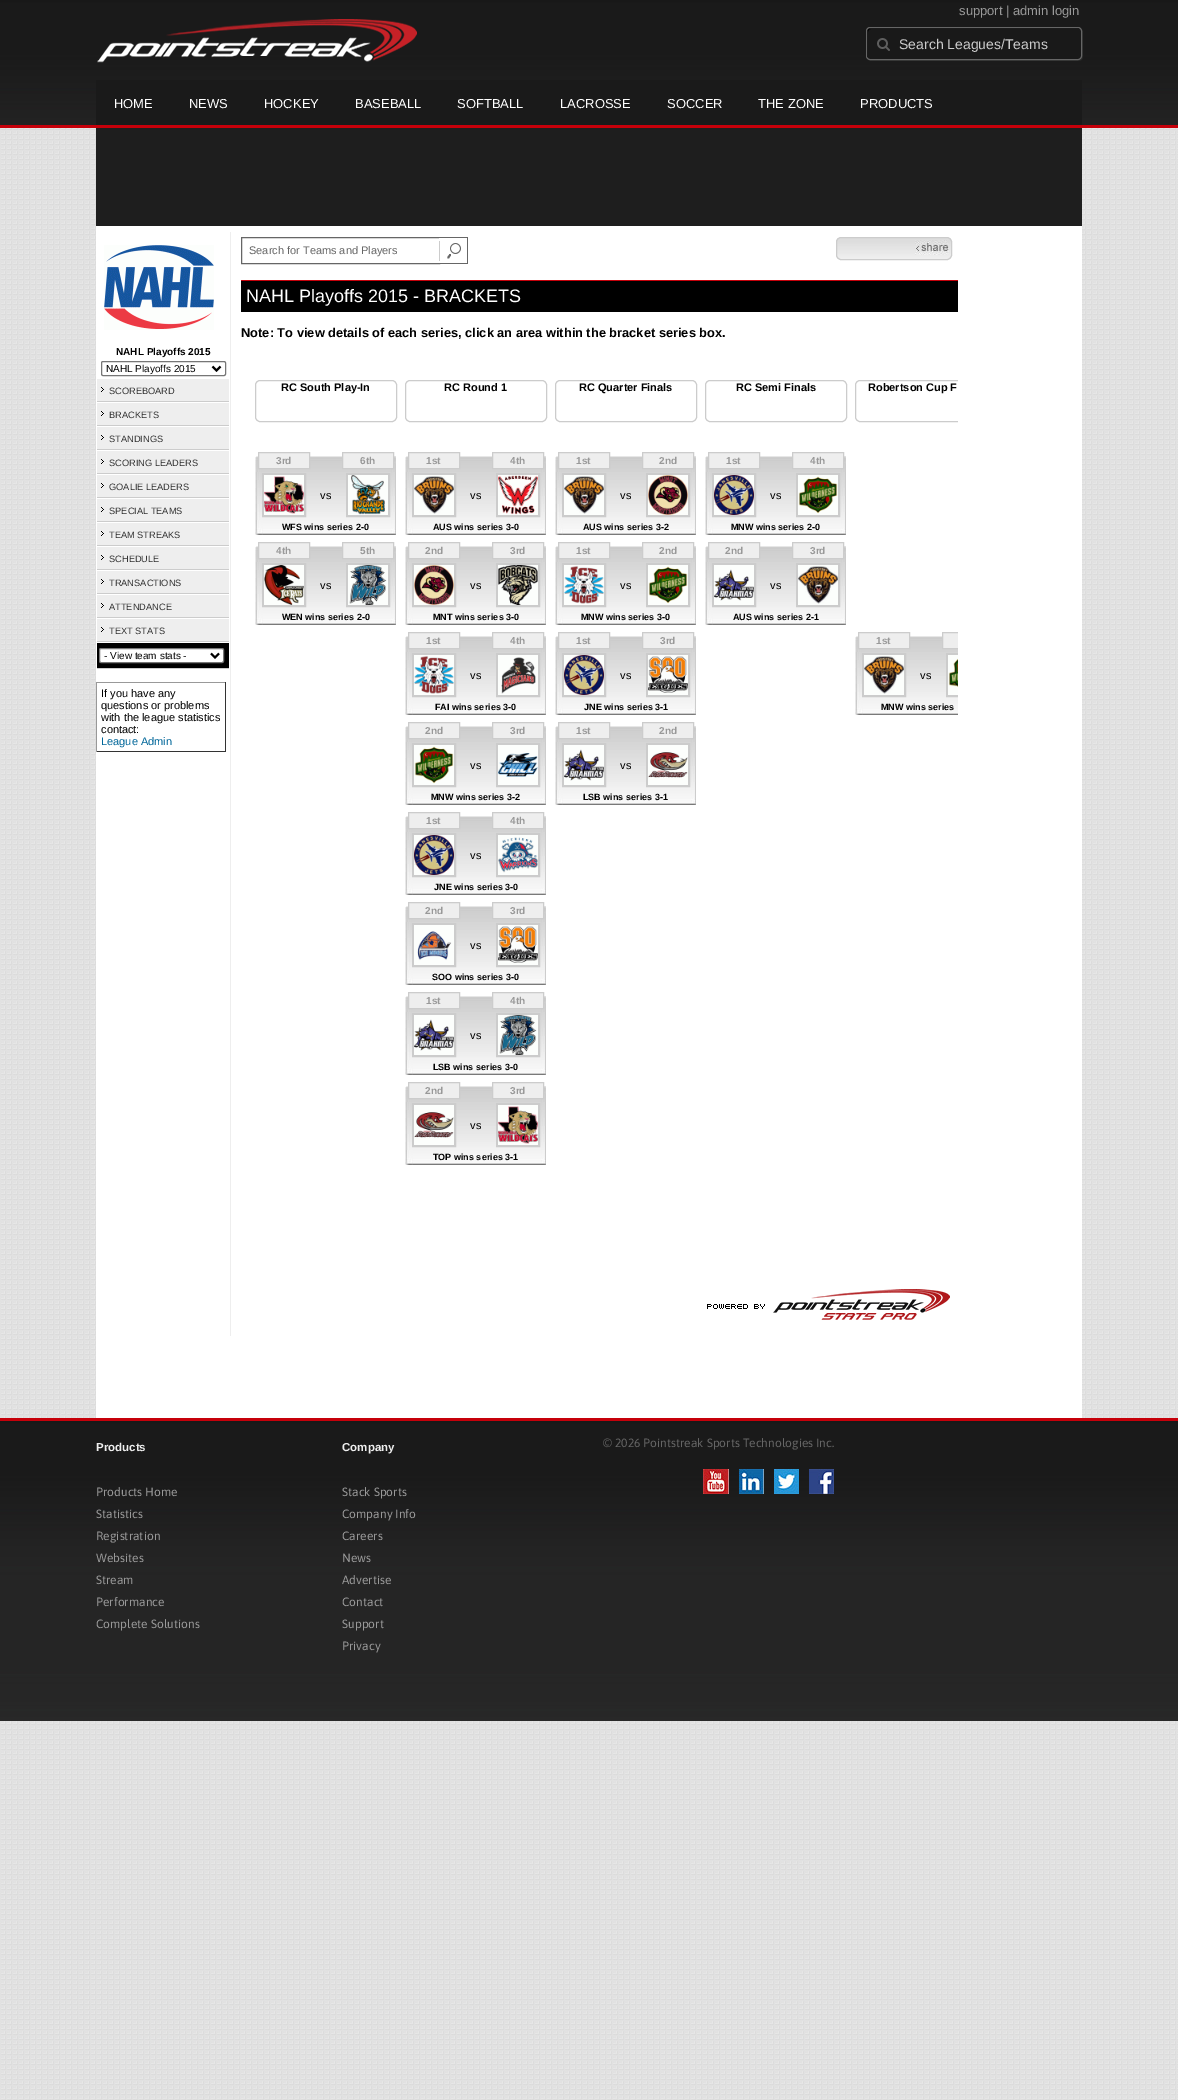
%!PS
<< /PageSize [1178 2100] >> setpagedevice
/roundrect { 5 dict begin { /r /h /w /y /x } { exch def } forall
  x r add y moveto x w add y 2 copy h add r arct x w add y h add x 1 index r arct
  x y h add x y r arct x y 2 copy exch w add exch r arct closepath end } def
/picture { 5 dict begin { /h /w /y /x /name } { exch def } forall
  gsave x y translate w h scale
  w h 8 [w 0 0 h 0 0] name (r) file false 3 colorimage grestore end } def
0 2100 translate 1 -1 scale
4 setmiterlimit
1 setgray
0 0 1178 2100 rectfill
(img1.rgb) 0 128 1178 1972 picture
(img2.rgb) 0 0 1178 125 picture
0.776 0 0.039 setrgbcolor
0 125 1178 3 rectfill
(img3.rgb) 97 19 320 44 picture
/LiberationSans-Regular [13 0 0 -13 0 0] selectfont
0.6 setgray
959 15 moveto (support | admin login) show
0.153 0.157 0.153 setrgbcolor
newpath 868 59 moveto 868 60 870 61 871 61 curveto 1079 61 lineto 1081 61 1083 59 1083 57 curveto 1083 32 lineto 1083 31 1082 29 1081 29 curveto 1082 31 lineto 1082 56 lineto 1082 58 1080 60 1078 60 curveto 870 60 lineto closepath fill
0.098 setgray
866 27 216 33 4 roundrect fill
(img4.rgb) 877 38 13 13 picture
0 setgray
newpath 871 29 moveto 1080 29 lineto 1078 28 lineto 870 28 lineto 866 28 867 33 867 35 curveto 867 44 lineto 867 46 866 57 868 58 curveto 868 36 lineto 868 34 867 29 871 29 curveto closepath fill
0.4 setgray
866.5 27.5 215 32 3.5 roundrect stroke
/LiberationSans-Regular [14 0 0 -14 0 0] selectfont
0.8 setgray
899 49 moveto (Search Leagues/Teams) show
0.102 setgray
96 80 986 45 rectfill
/LiberationSans-Regular [13 0 0 -13 0 0] selectfont
1 setgray
114 108 moveto (HOME) show
189 108 moveto (NEWS) show
264 108 moveto (HOCKEY) show
355 108 moveto (BASEBALL) show
457 108 moveto (SOFTBALL) show
560 108 moveto (LACROSSE) show
667 108 moveto (SOCCER) show
758 108 moveto (THE ZONE) show
860 108 moveto (PRODUCTS) show
0.118 setgray
96 128 986 98 rectfill
1 setgray
96 226 986 1192 rectfill
0.933 setgray
230 232 1 1104 rectfill
(img5.rgb) 104 245 110 85 picture
/LiberationSans-Bold [10 0 0 -10 0 0] selectfont
0 setgray
116 355 moveto (NAHL Playoffs 2015) show
0.463 setgray
101.5 361.5 124 14 1.5 roundrect stroke
0 setgray
2 setlinewidth
newpath 212.5 366.5 moveto 216.5 370.5 lineto 220.5 366.5 lineto stroke
/LiberationSans-Regular [10 0 0 -10 0 0] selectfont
106 372 moveto (NAHL Playoffs 2015) show
0.933 setgray
97 379 132 22 rectfill
0.8 setgray
97 401 132 1 rectfill
(img6.rgb) 101 387 3 5 picture
/LiberationSans-Regular [9.25 0 0 -9.25 0 0] selectfont
0.2 setgray
109 394 moveto (SCOREBOARD) show
0.933 setgray
97 403 132 22 rectfill
0.8 setgray
97 425 132 1 rectfill
(img6.rgb) 101 411 3 5 picture
0.2 setgray
109 418 moveto (BRACKETS) show
0.933 setgray
97 427 132 22 rectfill
0.8 setgray
97 449 132 1 rectfill
(img6.rgb) 101 435 3 5 picture
0.2 setgray
109 442 moveto (STANDINGS) show
0.933 setgray
97 451 132 22 rectfill
0.8 setgray
97 473 132 1 rectfill
(img6.rgb) 101 459 3 5 picture
0.2 setgray
109 466 moveto (SCORING LEADERS) show
0.933 setgray
97 475 132 22 rectfill
0.8 setgray
97 497 132 1 rectfill
(img6.rgb) 101 483 3 5 picture
0.2 setgray
109 490 moveto (GOALIE LEADERS) show
0.933 setgray
97 499 132 22 rectfill
0.8 setgray
97 521 132 1 rectfill
(img6.rgb) 101 507 3 5 picture
0.2 setgray
109 514 moveto (SPECIAL TEAMS) show
0.933 setgray
97 523 132 22 rectfill
0.8 setgray
97 545 132 1 rectfill
(img6.rgb) 101 531 3 5 picture
0.2 setgray
109 538 moveto (TEAM STREAKS) show
0.933 setgray
97 547 132 22 rectfill
0.8 setgray
97 569 132 1 rectfill
(img6.rgb) 101 555 3 5 picture
0.2 setgray
109 562 moveto (SCHEDULE) show
0.933 setgray
97 571 132 22 rectfill
0.8 setgray
97 593 132 1 rectfill
(img6.rgb) 101 579 3 5 picture
0.2 setgray
109 586 moveto (TRANSACTIONS) show
0.933 setgray
97 595 132 22 rectfill
0.8 setgray
97 617 132 1 rectfill
(img6.rgb) 101 603 3 5 picture
0.2 setgray
109 610 moveto (ATTENDANCE) show
0.933 setgray
97 619 132 22 rectfill
0.8 setgray
97 641 132 1 rectfill
(img6.rgb) 101 627 3 5 picture
0.2 setgray
109 634 moveto (TEXT STATS) show
0 setgray
97 643 132 25 rectfill
0.8 setgray
97 668 132 1 rectfill
1 setgray
99.5 648.5 124 14 1.5 roundrect gsave fill grestore
0.463 setgray
1 setlinewidth
stroke
0 setgray
2 setlinewidth
newpath 211 653.5 moveto 215 657.5 lineto 219 653.5 lineto stroke
/LiberationSans-Regular [10 0 0 -10 0 0] selectfont
104 659 moveto (- View team stats -) show
0.6 setgray
96 682 130 1 rectfill
0.2 setgray
225 682 1 70 rectfill
96 751 130 1 rectfill
0.6 setgray
96 682 1 70 rectfill
/LiberationSans-Regular [11 0 0 -11 0 0] selectfont
0 setgray
101 697 moveto (If you have any) show
101 709 moveto (questions or problems) show
101 721 moveto (with the league statistics) show
101 733 moveto (contact:) show
0 0.4 0.6 setrgbcolor
101 745 moveto (League Admin) show
0.4 setgray
1 setlinewidth
241.5 237.5 198 26 rectstroke
249 254 moveto (Search for Teams and Players) show
(img7.rgb) 439 237 29 27 picture
(img8.rgb) 836 238 116 22 picture
0.8 setgray
836.5 237.5 115 22 4.5 roundrect stroke
(img9.rgb) 915 240 34 15 picture
0 setgray
241 281 717 31 rectfill
0.776 0 0.039 setrgbcolor
241 280 717 1 rectfill
/LiberationSans-Regular [18 0 0 -18 0 0] selectfont
1 setgray
246 302 moveto (NAHL Playoffs 2015 - BRACKETS) show
/LiberationSans-Bold [12.85 0 0 -12.85 0 0] selectfont
0 setgray
241 337 moveto (Note: To view details of each series, click an area within the bracket series box.) show
0.8 setgray
255.5 380.5 141 41 4.5 roundrect stroke
/LiberationSans-Bold [11 0 0 -11 0 0] selectfont
0 setgray
281 391 moveto (RC South Play-In) show
0.8 setgray
405.5 380.5 141 41 4.5 roundrect stroke
0 setgray
444 391 moveto (RC Round 1) show
0.8 setgray
555.5 380.5 141 41 4.5 roundrect stroke
0 setgray
579 391 moveto (RC Quarter Finals) show
0.8 setgray
705.5 380.5 141 41 4.5 roundrect stroke
0 setgray
736 391 moveto (RC Semi Finals) show
gsave
245 360 713 910 rectclip
0.8 setgray
855.5 380.5 141 41 4.5 roundrect stroke
grestore
868 391 moveto (Robertson Cup F) show
(img10.rgb) 255 456 141 79 picture
0.933 setgray
newpath 258.5 452.5 moveto 309.5 452.5 lineto 309.5 468.5 lineto 258.5 468.5 lineto closepath gsave fill grestore
0.8 setgray
stroke
/LiberationSans-Bold [10 0 0 -10 0 0] selectfont
0.6 setgray
276 464 moveto (3rd) show
0.933 setgray
newpath 342.5 452.5 moveto 393.5 452.5 lineto 393.5 468.5 lineto 342.5 468.5 lineto closepath gsave fill grestore
0.8 setgray
stroke
0.6 setgray
360 464 moveto (6th) show
0.8 setgray
2 setlinewidth
263 474 42 42 rectstroke
(img11.rgb) 264 475 40 40 picture
/LiberationSans-Regular [11 0 0 -11 0 0] selectfont
0 setgray
320 499 moveto (vs) show
0.8 setgray
347 474 42 42 rectstroke
(img12.rgb) 348 475 40 40 picture
/LiberationSans-Bold [9 0 0 -9 0 0] selectfont
0 setgray
282 530 moveto (WFS wins series 2-0) show
(img10.rgb) 405 456 141 79 picture
0.933 setgray
newpath 408.5 452.5 moveto 459.5 452.5 lineto 459.5 468.5 lineto 408.5 468.5 lineto closepath gsave fill grestore
0.8 setgray
1 setlinewidth
stroke
/LiberationSans-Bold [10 0 0 -10 0 0] selectfont
0.6 setgray
426 464 moveto (1st) show
0.933 setgray
newpath 492.5 452.5 moveto 543.5 452.5 lineto 543.5 468.5 lineto 492.5 468.5 lineto closepath gsave fill grestore
0.8 setgray
stroke
0.6 setgray
510 464 moveto (4th) show
0.8 setgray
2 setlinewidth
413 474 42 42 rectstroke
(img13.rgb) 414 475 40 40 picture
/LiberationSans-Regular [11 0 0 -11 0 0] selectfont
0 setgray
470 499 moveto (vs) show
0.8 setgray
497 474 42 42 rectstroke
(img14.rgb) 498 475 40 40 picture
/LiberationSans-Bold [9 0 0 -9 0 0] selectfont
0 setgray
433 530 moveto (AUS wins series 3-0) show
(img10.rgb) 555 456 141 79 picture
0.933 setgray
newpath 558.5 452.5 moveto 609.5 452.5 lineto 609.5 468.5 lineto 558.5 468.5 lineto closepath gsave fill grestore
0.8 setgray
1 setlinewidth
stroke
/LiberationSans-Bold [10 0 0 -10 0 0] selectfont
0.6 setgray
576 464 moveto (1st) show
0.933 setgray
newpath 642.5 452.5 moveto 693.5 452.5 lineto 693.5 468.5 lineto 642.5 468.5 lineto closepath gsave fill grestore
0.8 setgray
stroke
0.6 setgray
659 464 moveto (2nd) show
0.8 setgray
2 setlinewidth
563 474 42 42 rectstroke
(img13.rgb) 564 475 40 40 picture
/LiberationSans-Regular [11 0 0 -11 0 0] selectfont
0 setgray
620 499 moveto (vs) show
0.8 setgray
647 474 42 42 rectstroke
(img15.rgb) 648 475 40 40 picture
/LiberationSans-Bold [9 0 0 -9 0 0] selectfont
0 setgray
583 530 moveto (AUS wins series 3-2) show
(img10.rgb) 705 456 141 79 picture
0.933 setgray
newpath 708.5 452.5 moveto 759.5 452.5 lineto 759.5 468.5 lineto 708.5 468.5 lineto closepath gsave fill grestore
0.8 setgray
1 setlinewidth
stroke
/LiberationSans-Bold [10 0 0 -10 0 0] selectfont
0.6 setgray
726 464 moveto (1st) show
0.933 setgray
newpath 792.5 452.5 moveto 843.5 452.5 lineto 843.5 468.5 lineto 792.5 468.5 lineto closepath gsave fill grestore
0.8 setgray
stroke
0.6 setgray
810 464 moveto (4th) show
0.8 setgray
2 setlinewidth
713 474 42 42 rectstroke
(img16.rgb) 714 475 40 40 picture
/LiberationSans-Regular [11 0 0 -11 0 0] selectfont
0 setgray
770 499 moveto (vs) show
0.8 setgray
797 474 42 42 rectstroke
(img17.rgb) 798 475 40 40 picture
/LiberationSans-Bold [9 0 0 -9 0 0] selectfont
0 setgray
731 530 moveto (MNW wins series 2-0) show
(img10.rgb) 255 546 141 79 picture
0.933 setgray
newpath 258.5 542.5 moveto 309.5 542.5 lineto 309.5 558.5 lineto 258.5 558.5 lineto closepath gsave fill grestore
0.8 setgray
1 setlinewidth
stroke
/LiberationSans-Bold [10 0 0 -10 0 0] selectfont
0.6 setgray
276 554 moveto (4th) show
0.933 setgray
newpath 342.5 542.5 moveto 393.5 542.5 lineto 393.5 558.5 lineto 342.5 558.5 lineto closepath gsave fill grestore
0.8 setgray
stroke
0.6 setgray
360 554 moveto (5th) show
0.8 setgray
2 setlinewidth
263 564 42 42 rectstroke
(img18.rgb) 264 565 40 40 picture
/LiberationSans-Regular [11 0 0 -11 0 0] selectfont
0 setgray
320 589 moveto (vs) show
0.8 setgray
347 564 42 42 rectstroke
(img19.rgb) 348 565 40 40 picture
/LiberationSans-Bold [9 0 0 -9 0 0] selectfont
0 setgray
282 620 moveto (WEN wins series 2-0) show
(img10.rgb) 405 546 141 79 picture
0.933 setgray
newpath 408.5 542.5 moveto 459.5 542.5 lineto 459.5 558.5 lineto 408.5 558.5 lineto closepath gsave fill grestore
0.8 setgray
1 setlinewidth
stroke
/LiberationSans-Bold [10 0 0 -10 0 0] selectfont
0.6 setgray
425 554 moveto (2nd) show
0.933 setgray
newpath 492.5 542.5 moveto 543.5 542.5 lineto 543.5 558.5 lineto 492.5 558.5 lineto closepath gsave fill grestore
0.8 setgray
stroke
0.6 setgray
510 554 moveto (3rd) show
0.8 setgray
2 setlinewidth
413 564 42 42 rectstroke
(img15.rgb) 414 565 40 40 picture
/LiberationSans-Regular [11 0 0 -11 0 0] selectfont
0 setgray
470 589 moveto (vs) show
0.8 setgray
497 564 42 42 rectstroke
(img20.rgb) 498 565 40 40 picture
/LiberationSans-Bold [9 0 0 -9 0 0] selectfont
0 setgray
433 620 moveto (MNT wins series 3-0) show
(img10.rgb) 555 546 141 79 picture
0.933 setgray
newpath 558.5 542.5 moveto 609.5 542.5 lineto 609.5 558.5 lineto 558.5 558.5 lineto closepath gsave fill grestore
0.8 setgray
1 setlinewidth
stroke
/LiberationSans-Bold [10 0 0 -10 0 0] selectfont
0.6 setgray
576 554 moveto (1st) show
0.933 setgray
newpath 642.5 542.5 moveto 693.5 542.5 lineto 693.5 558.5 lineto 642.5 558.5 lineto closepath gsave fill grestore
0.8 setgray
stroke
0.6 setgray
659 554 moveto (2nd) show
0.8 setgray
2 setlinewidth
563 564 42 42 rectstroke
(img21.rgb) 564 565 40 40 picture
/LiberationSans-Regular [11 0 0 -11 0 0] selectfont
0 setgray
620 589 moveto (vs) show
0.8 setgray
647 564 42 42 rectstroke
(img17.rgb) 648 565 40 40 picture
/LiberationSans-Bold [9 0 0 -9 0 0] selectfont
0 setgray
581 620 moveto (MNW wins series 3-0) show
(img10.rgb) 705 546 141 79 picture
0.933 setgray
newpath 708.5 542.5 moveto 759.5 542.5 lineto 759.5 558.5 lineto 708.5 558.5 lineto closepath gsave fill grestore
0.8 setgray
1 setlinewidth
stroke
/LiberationSans-Bold [10 0 0 -10 0 0] selectfont
0.6 setgray
725 554 moveto (2nd) show
0.933 setgray
newpath 792.5 542.5 moveto 843.5 542.5 lineto 843.5 558.5 lineto 792.5 558.5 lineto closepath gsave fill grestore
0.8 setgray
stroke
0.6 setgray
810 554 moveto (3rd) show
0.8 setgray
2 setlinewidth
713 564 42 42 rectstroke
(img22.rgb) 714 565 40 40 picture
/LiberationSans-Regular [11 0 0 -11 0 0] selectfont
0 setgray
770 589 moveto (vs) show
0.8 setgray
797 564 42 42 rectstroke
(img13.rgb) 798 565 40 40 picture
/LiberationSans-Bold [9 0 0 -9 0 0] selectfont
0 setgray
733 620 moveto (AUS wins series 2-1) show
(img10.rgb) 405 636 141 79 picture
0.933 setgray
newpath 408.5 632.5 moveto 459.5 632.5 lineto 459.5 648.5 lineto 408.5 648.5 lineto closepath gsave fill grestore
0.8 setgray
1 setlinewidth
stroke
/LiberationSans-Bold [10 0 0 -10 0 0] selectfont
0.6 setgray
426 644 moveto (1st) show
0.933 setgray
newpath 492.5 632.5 moveto 543.5 632.5 lineto 543.5 648.5 lineto 492.5 648.5 lineto closepath gsave fill grestore
0.8 setgray
stroke
0.6 setgray
510 644 moveto (4th) show
0.8 setgray
2 setlinewidth
413 654 42 42 rectstroke
(img21.rgb) 414 655 40 40 picture
/LiberationSans-Regular [11 0 0 -11 0 0] selectfont
0 setgray
470 679 moveto (vs) show
0.8 setgray
497 654 42 42 rectstroke
(img23.rgb) 498 655 40 40 picture
/LiberationSans-Bold [9 0 0 -9 0 0] selectfont
0 setgray
435 710 moveto (FAI wins series 3-0) show
(img10.rgb) 555 636 141 79 picture
0.933 setgray
newpath 558.5 632.5 moveto 609.5 632.5 lineto 609.5 648.5 lineto 558.5 648.5 lineto closepath gsave fill grestore
0.8 setgray
1 setlinewidth
stroke
/LiberationSans-Bold [10 0 0 -10 0 0] selectfont
0.6 setgray
576 644 moveto (1st) show
0.933 setgray
newpath 642.5 632.5 moveto 693.5 632.5 lineto 693.5 648.5 lineto 642.5 648.5 lineto closepath gsave fill grestore
0.8 setgray
stroke
0.6 setgray
660 644 moveto (3rd) show
0.8 setgray
2 setlinewidth
563 654 42 42 rectstroke
(img16.rgb) 564 655 40 40 picture
/LiberationSans-Regular [11 0 0 -11 0 0] selectfont
0 setgray
620 679 moveto (vs) show
0.8 setgray
647 654 42 42 rectstroke
(img24.rgb) 648 655 40 40 picture
/LiberationSans-Bold [9 0 0 -9 0 0] selectfont
0 setgray
584 710 moveto (JNE wins series 3-1) show
(img25.rgb) 855 636 103 79 picture
0.933 setgray
newpath 858.5 632.5 moveto 909.5 632.5 lineto 909.5 648.5 lineto 858.5 648.5 lineto closepath gsave fill grestore
0.8 setgray
1 setlinewidth
stroke
/LiberationSans-Bold [10 0 0 -10 0 0] selectfont
0.6 setgray
876 644 moveto (1st) show
0.933 setgray
943 633 15 15 rectfill
gsave
245 360 713 910 rectclip
0.8 setgray
942.5 632.5 51 16 rectstroke
grestore
0.8 setgray
2 setlinewidth
863 654 42 42 rectstroke
(img13.rgb) 864 655 40 40 picture
/LiberationSans-Regular [11 0 0 -11 0 0] selectfont
0 setgray
920 679 moveto (vs) show
gsave
245 360 713 910 rectclip
0.8 setgray
947 654 42 42 rectstroke
grestore
(img26.rgb) 948 655 10 40 picture
/LiberationSans-Bold [9 0 0 -9 0 0] selectfont
881 710 moveto (MNW wins series) show
(img10.rgb) 405 726 141 79 picture
0.933 setgray
newpath 408.5 722.5 moveto 459.5 722.5 lineto 459.5 738.5 lineto 408.5 738.5 lineto closepath gsave fill grestore
0.8 setgray
1 setlinewidth
stroke
/LiberationSans-Bold [10 0 0 -10 0 0] selectfont
0.6 setgray
425 734 moveto (2nd) show
0.933 setgray
newpath 492.5 722.5 moveto 543.5 722.5 lineto 543.5 738.5 lineto 492.5 738.5 lineto closepath gsave fill grestore
0.8 setgray
stroke
0.6 setgray
510 734 moveto (3rd) show
0.8 setgray
2 setlinewidth
413 744 42 42 rectstroke
(img17.rgb) 414 745 40 40 picture
/LiberationSans-Regular [11 0 0 -11 0 0] selectfont
0 setgray
470 769 moveto (vs) show
0.8 setgray
497 744 42 42 rectstroke
(img27.rgb) 498 745 40 40 picture
/LiberationSans-Bold [9 0 0 -9 0 0] selectfont
0 setgray
431 800 moveto (MNW wins series 3-2) show
(img10.rgb) 555 726 141 79 picture
0.933 setgray
newpath 558.5 722.5 moveto 609.5 722.5 lineto 609.5 738.5 lineto 558.5 738.5 lineto closepath gsave fill grestore
0.8 setgray
1 setlinewidth
stroke
/LiberationSans-Bold [10 0 0 -10 0 0] selectfont
0.6 setgray
576 734 moveto (1st) show
0.933 setgray
newpath 642.5 722.5 moveto 693.5 722.5 lineto 693.5 738.5 lineto 642.5 738.5 lineto closepath gsave fill grestore
0.8 setgray
stroke
0.6 setgray
659 734 moveto (2nd) show
0.8 setgray
2 setlinewidth
563 744 42 42 rectstroke
(img22.rgb) 564 745 40 40 picture
/LiberationSans-Regular [11 0 0 -11 0 0] selectfont
0 setgray
620 769 moveto (vs) show
0.8 setgray
647 744 42 42 rectstroke
(img28.rgb) 648 745 40 40 picture
/LiberationSans-Bold [9 0 0 -9 0 0] selectfont
0 setgray
583 800 moveto (LSB wins series 3-1) show
(img10.rgb) 405 816 141 79 picture
0.933 setgray
newpath 408.5 812.5 moveto 459.5 812.5 lineto 459.5 828.5 lineto 408.5 828.5 lineto closepath gsave fill grestore
0.8 setgray
1 setlinewidth
stroke
/LiberationSans-Bold [10 0 0 -10 0 0] selectfont
0.6 setgray
426 824 moveto (1st) show
0.933 setgray
newpath 492.5 812.5 moveto 543.5 812.5 lineto 543.5 828.5 lineto 492.5 828.5 lineto closepath gsave fill grestore
0.8 setgray
stroke
0.6 setgray
510 824 moveto (4th) show
0.8 setgray
2 setlinewidth
413 834 42 42 rectstroke
(img16.rgb) 414 835 40 40 picture
/LiberationSans-Regular [11 0 0 -11 0 0] selectfont
0 setgray
470 859 moveto (vs) show
0.8 setgray
497 834 42 42 rectstroke
(img29.rgb) 498 835 40 40 picture
/LiberationSans-Bold [9 0 0 -9 0 0] selectfont
0 setgray
434 890 moveto (JNE wins series 3-0) show
(img10.rgb) 405 906 141 79 picture
0.933 setgray
newpath 408.5 902.5 moveto 459.5 902.5 lineto 459.5 918.5 lineto 408.5 918.5 lineto closepath gsave fill grestore
0.8 setgray
1 setlinewidth
stroke
/LiberationSans-Bold [10 0 0 -10 0 0] selectfont
0.6 setgray
425 914 moveto (2nd) show
0.933 setgray
newpath 492.5 902.5 moveto 543.5 902.5 lineto 543.5 918.5 lineto 492.5 918.5 lineto closepath gsave fill grestore
0.8 setgray
stroke
0.6 setgray
510 914 moveto (3rd) show
0.8 setgray
2 setlinewidth
413 924 42 42 rectstroke
(img30.rgb) 414 925 40 40 picture
/LiberationSans-Regular [11 0 0 -11 0 0] selectfont
0 setgray
470 949 moveto (vs) show
0.8 setgray
497 924 42 42 rectstroke
(img24.rgb) 498 925 40 40 picture
/LiberationSans-Bold [9 0 0 -9 0 0] selectfont
0 setgray
432 980 moveto (SOO wins series 3-0) show
(img10.rgb) 405 996 141 79 picture
0.933 setgray
newpath 408.5 992.5 moveto 459.5 992.5 lineto 459.5 1008.5 lineto 408.5 1008.5 lineto closepath gsave fill grestore
0.8 setgray
1 setlinewidth
stroke
/LiberationSans-Bold [10 0 0 -10 0 0] selectfont
0.6 setgray
426 1004 moveto (1st) show
0.933 setgray
newpath 492.5 992.5 moveto 543.5 992.5 lineto 543.5 1008.5 lineto 492.5 1008.5 lineto closepath gsave fill grestore
0.8 setgray
stroke
0.6 setgray
510 1004 moveto (4th) show
0.8 setgray
2 setlinewidth
413 1014 42 42 rectstroke
(img22.rgb) 414 1015 40 40 picture
/LiberationSans-Regular [11 0 0 -11 0 0] selectfont
0 setgray
470 1039 moveto (vs) show
0.8 setgray
497 1014 42 42 rectstroke
(img19.rgb) 498 1015 40 40 picture
/LiberationSans-Bold [9 0 0 -9 0 0] selectfont
0 setgray
433 1070 moveto (LSB wins series 3-0) show
(img10.rgb) 405 1086 141 79 picture
0.933 setgray
newpath 408.5 1082.5 moveto 459.5 1082.5 lineto 459.5 1098.5 lineto 408.5 1098.5 lineto closepath gsave fill grestore
0.8 setgray
1 setlinewidth
stroke
/LiberationSans-Bold [10 0 0 -10 0 0] selectfont
0.6 setgray
425 1094 moveto (2nd) show
0.933 setgray
newpath 492.5 1082.5 moveto 543.5 1082.5 lineto 543.5 1098.5 lineto 492.5 1098.5 lineto closepath gsave fill grestore
0.8 setgray
stroke
0.6 setgray
510 1094 moveto (3rd) show
0.8 setgray
2 setlinewidth
413 1104 42 42 rectstroke
(img28.rgb) 414 1105 40 40 picture
/LiberationSans-Regular [11 0 0 -11 0 0] selectfont
0 setgray
470 1129 moveto (vs) show
0.8 setgray
497 1104 42 42 rectstroke
(img11.rgb) 498 1105 40 40 picture
/LiberationSans-Bold [9 0 0 -9 0 0] selectfont
0 setgray
433 1160 moveto (TOP wins series 3-1) show
(img31.rgb) 707 1289 243 31 picture
(img32.rgb) 0 1421 1178 300 picture
0.776 0 0.039 setrgbcolor
0 1418 1178 3 rectfill
/LiberationSans-Bold [11.5 0 0 -11.5 0 0] selectfont
0.933 setgray
96 1451 moveto (Products) show
/Asap-Regular [12 0 0 -12 0 0] selectfont
0.6 setgray
96 1496 moveto (Products Home) show
96 1518 moveto (Statistics) show
96 1540 moveto (Registration) show
96 1562 moveto (Websites) show
96 1584 moveto (Stream) show
96 1606 moveto (Performance) show
96 1628 moveto (Complete Solutions) show
/LiberationSans-Bold [11.5 0 0 -11.5 0 0] selectfont
0.933 setgray
342 1451 moveto (Company) show
/Asap-Regular [12 0 0 -12 0 0] selectfont
0.6 setgray
342 1496 moveto (Stack Sports) show
342 1518 moveto (Company Info) show
342 1540 moveto (Careers) show
342 1562 moveto (News) show
342 1584 moveto (Advertise) show
342 1606 moveto (Contact) show
342 1628 moveto (Support) show
342 1650 moveto (Privacy) show
0.4 setgray
603 1447 moveto (© 2026 Pointstreak Sports Technologies Inc.) show
(img33.rgb) 703 1469 26 25 picture
(img34.rgb) 739 1469 25 25 picture
(img35.rgb) 774 1469 25 25 picture
(img36.rgb) 809 1469 25 25 picture
showpage
